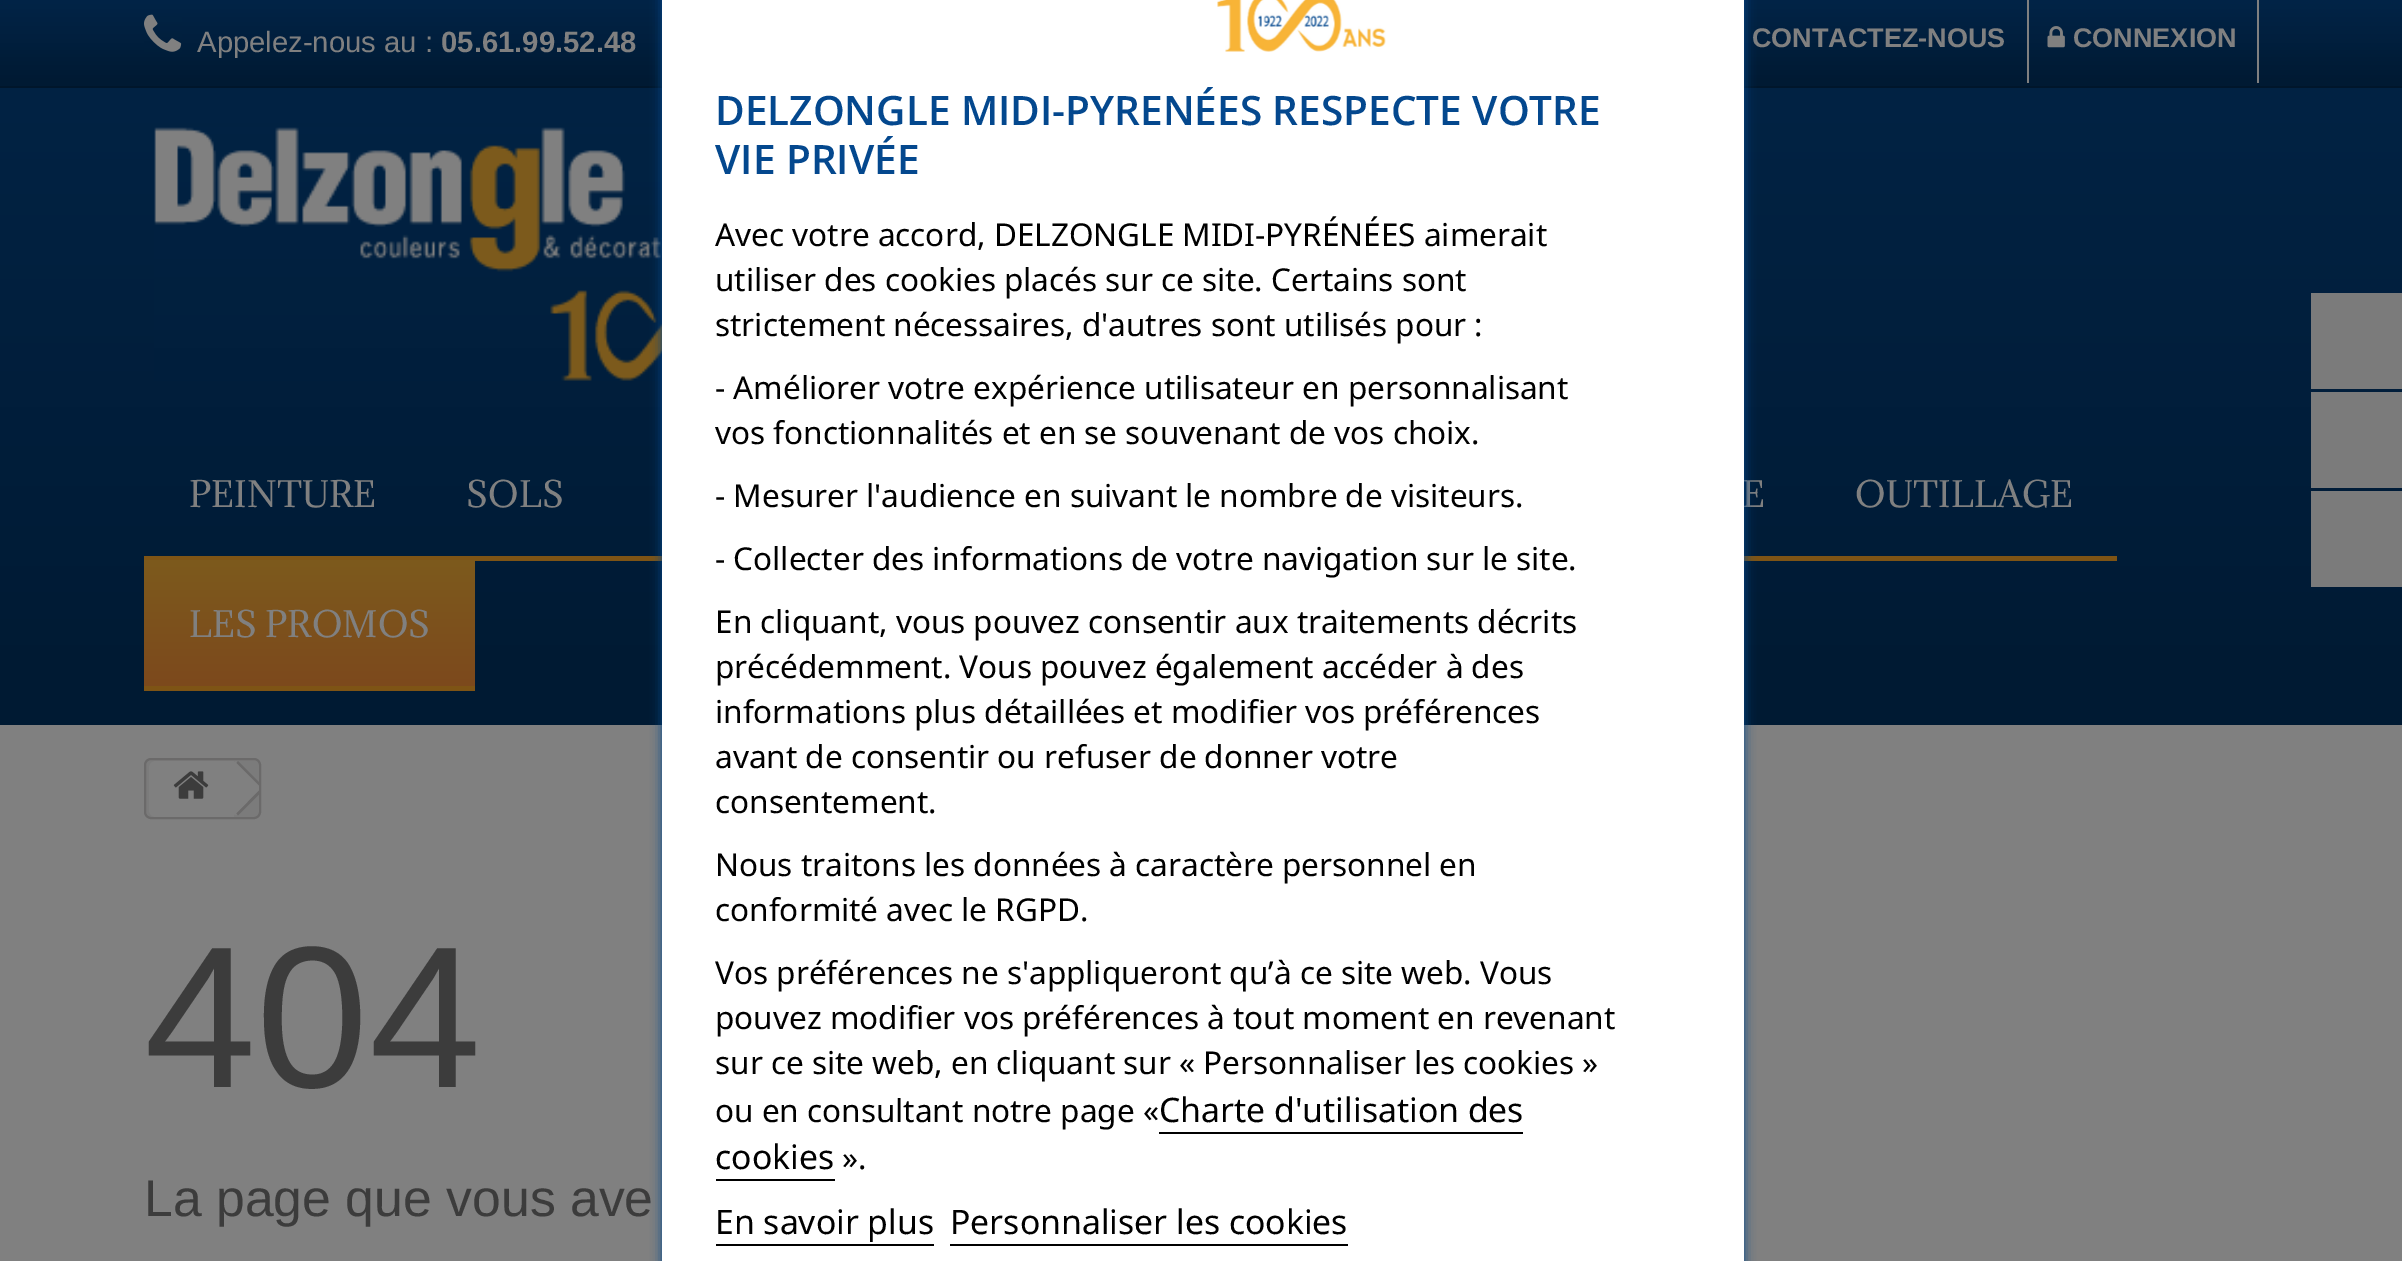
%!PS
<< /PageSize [2402 1261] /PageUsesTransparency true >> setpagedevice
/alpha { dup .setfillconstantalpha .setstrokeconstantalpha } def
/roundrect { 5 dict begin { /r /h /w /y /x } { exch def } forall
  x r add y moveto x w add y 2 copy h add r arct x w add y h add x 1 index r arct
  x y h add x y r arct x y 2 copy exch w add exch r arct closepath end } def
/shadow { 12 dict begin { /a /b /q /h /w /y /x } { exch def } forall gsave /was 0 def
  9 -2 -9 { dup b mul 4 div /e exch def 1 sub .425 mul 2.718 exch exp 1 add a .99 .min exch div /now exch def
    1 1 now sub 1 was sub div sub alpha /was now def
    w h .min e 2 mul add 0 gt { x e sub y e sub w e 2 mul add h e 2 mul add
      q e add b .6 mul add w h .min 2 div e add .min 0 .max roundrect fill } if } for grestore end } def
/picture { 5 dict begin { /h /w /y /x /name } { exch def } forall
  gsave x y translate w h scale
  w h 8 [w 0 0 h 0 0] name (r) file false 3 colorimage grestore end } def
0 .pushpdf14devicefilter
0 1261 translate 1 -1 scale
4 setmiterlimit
0.502 setgray
0 0 2402 1261 rectfill
gsave newpath 0 88 moveto 2402 88 lineto 2402 725 lineto 0 725 lineto closepath clip newpath
<< /ShadingType 2 /ColorSpace /DeviceRGB /Coords [1202 0 1202 725] /Extend [true true] /Function << /FunctionType 3 /Domain [0 1] /Functions [<< /FunctionType 2 /Domain [0 1] /C0 [0.008 0.141 0.278] /C1 [0 0.102 0.2] /N 1 >> << /FunctionType 2 /Domain [0 1] /C0 [0 0.102 0.2] /C1 [0 0.102 0.2] /N 1 >>] /Bounds [0.96] /Encode [0 1 0 1] >> >> shfill grestore
gsave newpath 0 0 moveto 2402 0 lineto 2402 86 lineto 0 86 lineto closepath clip newpath
<< /ShadingType 2 /ColorSpace /DeviceRGB /Coords [1202 0 1202 86] /Extend [true true] /Function << /FunctionType 3 /Domain [0 1] /Functions [<< /FunctionType 2 /Domain [0 1] /C0 [0.008 0.141 0.278] /C1 [0 0.102 0.2] /N 1 >> << /FunctionType 2 /Domain [0 1] /C0 [0 0.102 0.2] /C1 [0 0.102 0.2] /N 1 >>] /Bounds [0.96] /Encode [0 1 0 1] >> >> shfill grestore
0 0.086 0.169 setrgbcolor
0 86 2402 2 rectfill
(img1.rgb) 144 14 38 38 picture
/LiberationSans-Regular [29.25 0 0 -29.25 0 0] selectfont
0.502 setgray
197 52 moveto (Appelez-nous au :) show
/LiberationSans-Bold [29.25 0 0 -29.25 0 0] selectfont
441 52 moveto (05.61.99.52.48) show
/LiberationSans-Bold [27 0 0 -27 0 0] selectfont
1752 47 moveto (CONTACTEZ-NOUS) show
2257 0 2 83 rectfill
2027 0 2 83 rectfill
(img2.rgb) 2047 26 18 22 picture
2073 47 moveto (CONNEXION) show
(img3.rgb) 154 127 508 254 picture
0.494 0.329 0.082 setrgbcolor
144 556 277 4 rectfill
/Adamina-Regular [33.75 0 0 -33.75 0 0] selectfont
0.502 setgray
189 507 moveto (PEINTURE) show
0.494 0.329 0.082 setrgbcolor
421 556 241 5 rectfill
0.502 setgray
466 507 moveto (SOLS) show
0.494 0.329 0.082 setrgbcolor
1744 556 373 5 rectfill
0.502 setgray
1742 507 moveto (E) show
1855 507 moveto (OUTILLAGE) show
0.494 0.329 0.082 setrgbcolor
144 686 331 5 rectfill
gsave newpath 144 560 moveto 475 560 lineto 475 686 lineto 144 686 lineto closepath clip newpath
<< /ShadingType 2 /ColorSpace /DeviceRGB /Coords [144 560 144 686] /Extend [true true] /Function << /FunctionType 2 /Domain [0 1] /C0 [0.486 0.353 0.11] /C1 [0.486 0.286 0.11] /N 1 >> >> shfill grestore
0.502 setgray
189 637 moveto (LES PROMOS) show
0.482 setgray
2311 293 91 96 rectfill
2311 392 91 96 rectfill
2311 491 91 96 rectfill
145 759 115 59 6 roundrect gsave fill grestore
0.42 0.416 0.416 setrgbcolor
2 setlinewidth
stroke
0.502 setgray
newpath 156 761 moveto 234 761 lineto 234 817 lineto 156 817 lineto 152 817 149 814 149 810 curveto 149 768 lineto 149 764 152 761 156 761 curveto closepath fill
(img4.rgb) 173 771 36 28 picture
newpath 239 763 moveto 259 782 lineto 259 794 lineto 239 814 lineto 238 815 235 815 233 814 curveto 211 791 lineto 209 790 209 787 211 785 curveto 233 763 lineto 235 761 238 761 239 763 curveto closepath fill
0.42 0.416 0.416 setrgbcolor
newpath 238 761 moveto 259 782 lineto 259 785.5 lineto 236.5 763 lineto closepath 259 790.5 moveto 259 794.5 lineto 238 815.5 lineto 236.5 813.5 lineto closepath fill
/LiberationSans-Regular [202 0 0 -202 0 0] selectfont
0.235 setgray
144 1087 moveto (404) show
/LiberationSans-Regular [51.75 0 0 -51.75 0 0] selectfont
144 1216 moveto (La page que vous ave) show
0.016 0.282 0.557 setrgbcolor
662 -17 1082 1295 0 5.5 1 shadow
1 setgray
662 0 1082 1261 rectfill
(img5.rgb) 1217 0 169 52 picture
/OpenSans-SemiBold [40.5 0 0 -40.5 0 0] selectfont
0.016 0.282 0.557 setrgbcolor
715 125 moveto (DELZONGLE MIDI-PYRENÉES RESPECTE VOTRE) show
715 174 moveto (VIE PRIVÉE) show
/NotoSans-Regular [31.5 0 0 -31.5 0 0] selectfont
0 setgray
715 246 moveto (Avec votre accord, DELZONGLE MIDI-PYRÉNÉES aimerait) show
715 291 moveto (utiliser des cookies placés sur ce site. Certains sont) show
715 336 moveto (strictement nécessaires, d'autres sont utilisés pour :) show
715 399 moveto (- Améliorer votre expérience utilisateur en personnalisant) show
715 444 moveto (vos fonctionnalités et en se souvenant de vos choix.) show
715 507 moveto (- Mesurer l'audience en suivant le nombre de visiteurs.) show
715 570 moveto (- Collecter des informations de votre navigation sur le site.) show
715 633 moveto (En cliquant, vous pouvez consentir aux traitements décrits) show
715 678 moveto (précédemment. Vous pouvez également accéder à des) show
715 723 moveto (informations plus détaillées et modifier vos préférences) show
715 768 moveto (avant de consentir ou refuser de donner votre) show
715 813 moveto (consentement.) show
715 876 moveto (Nous traitons les données à caractère personnel en) show
715 921 moveto (conformité avec le RGPD.) show
715 984 moveto (Vos préférences ne s'appliqueront qu’à ce site web. Vous) show
715 1029 moveto (pouvez modifier vos préférences à tout moment en revenant) show
715 1074 moveto (sur ce site web, en cliquant sur « Personnaliser les cookies ») show
715 1122 moveto (ou en consultant notre page «) show
/NotoSans-Regular [33.75 0 0 -33.75 0 0] selectfont
1159 1122 moveto (Charte d'utilisation des) show
1159 1132 364 2 rectfill
715 1169 moveto (cookies) show
716 1179 119 2 rectfill
/NotoSans-Regular [31.5 0 0 -31.5 0 0] selectfont
842 1169 moveto (».) show
/NotoSans-Regular [33.75 0 0 -33.75 0 0] selectfont
715 1234 moveto (En savoir plus) show
716 1244 218 2 rectfill
950 1234 moveto (Personnaliser les cookies) show
950 1244 398 2 rectfill
.poppdf14devicefilter showpage
